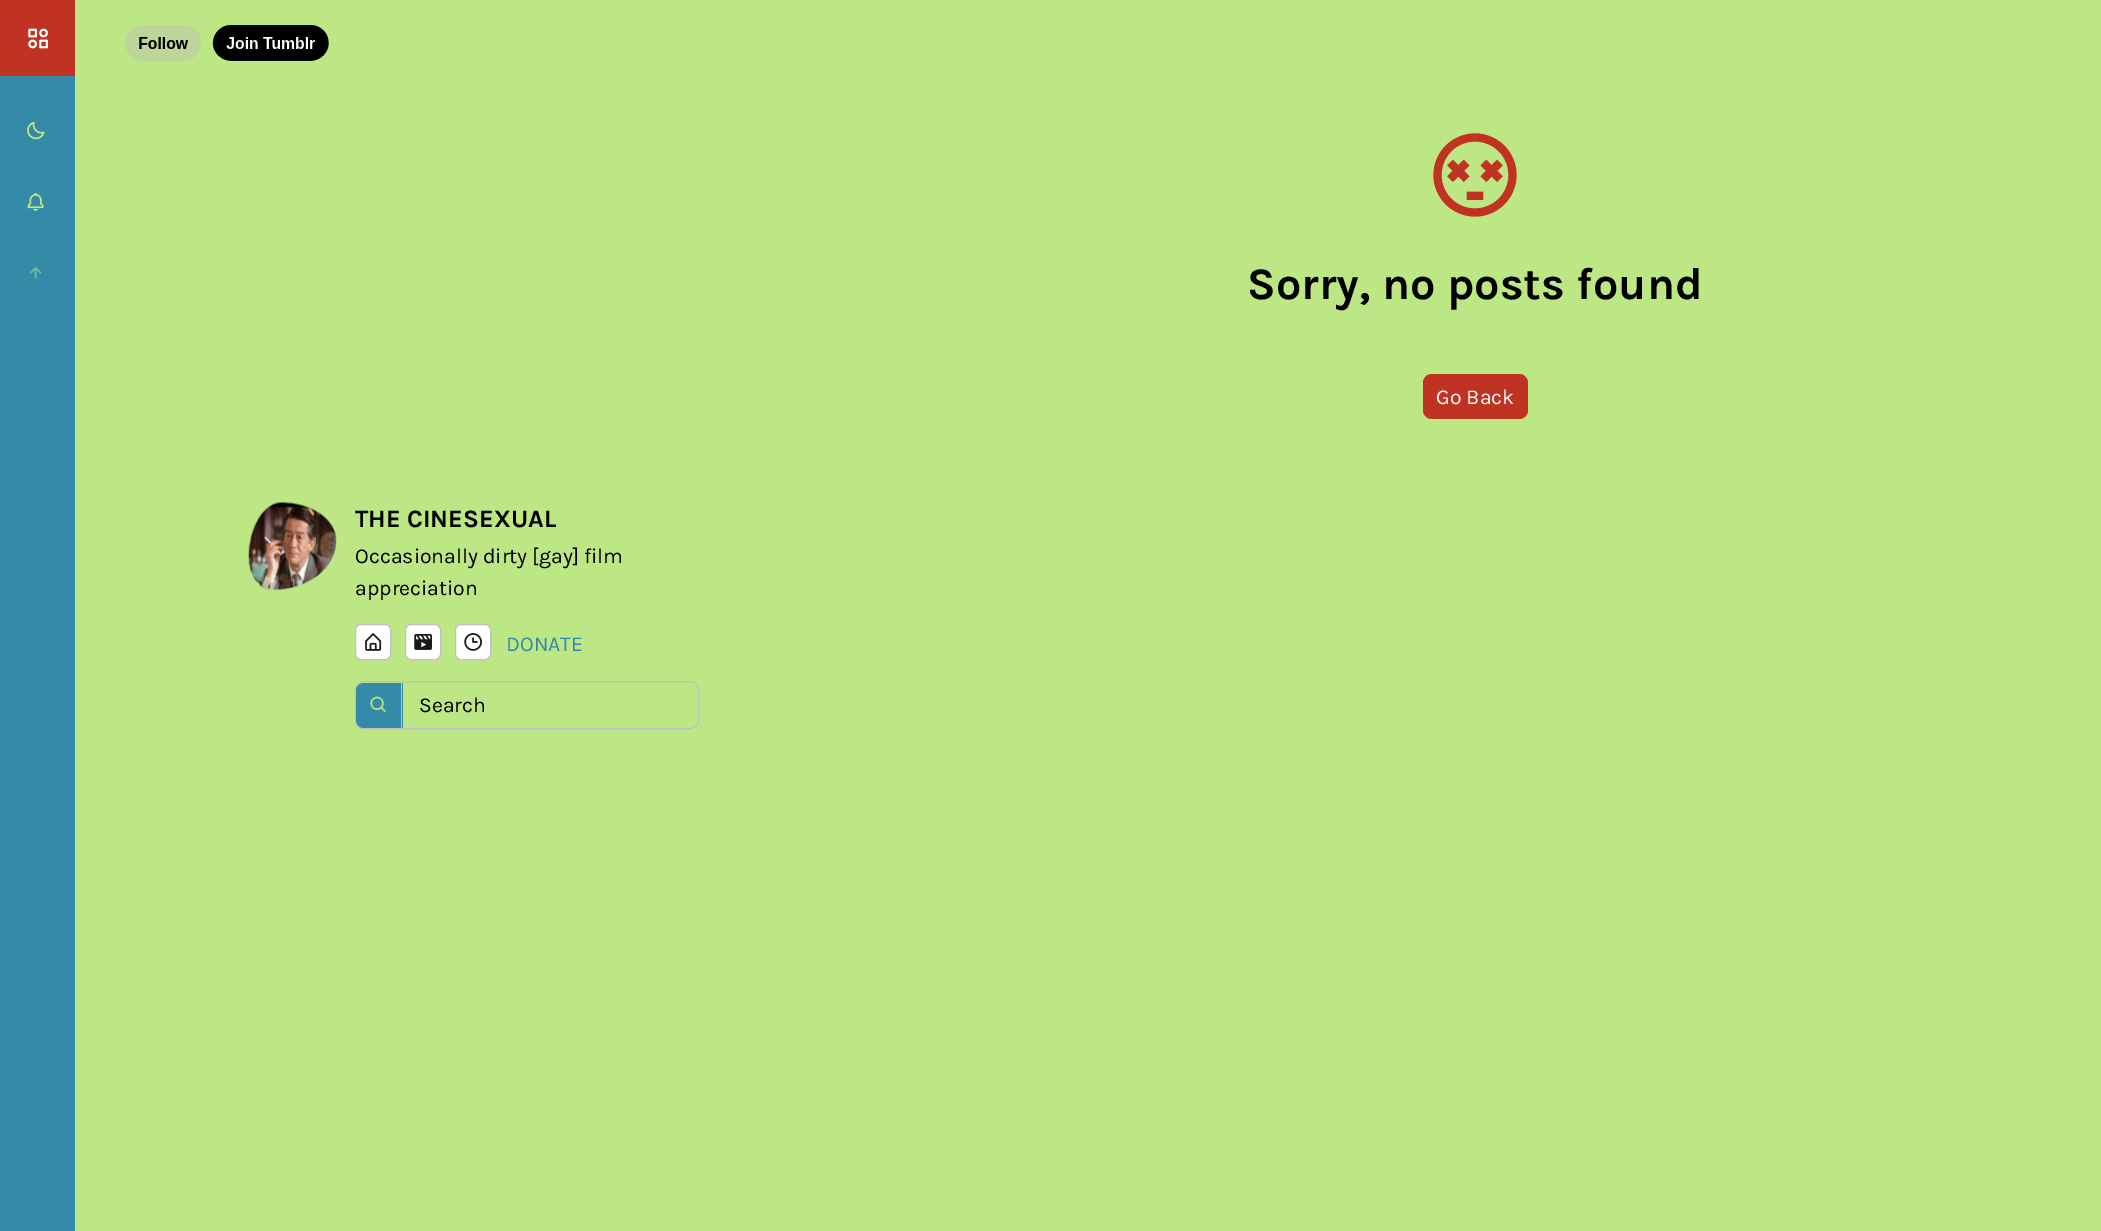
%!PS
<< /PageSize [2101 1231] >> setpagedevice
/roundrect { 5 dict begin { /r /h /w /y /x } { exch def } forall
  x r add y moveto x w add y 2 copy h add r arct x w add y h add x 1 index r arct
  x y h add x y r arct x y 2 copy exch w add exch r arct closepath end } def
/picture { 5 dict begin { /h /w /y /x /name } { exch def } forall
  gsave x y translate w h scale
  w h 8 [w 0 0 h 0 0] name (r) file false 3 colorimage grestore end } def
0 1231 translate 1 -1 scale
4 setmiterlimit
0.737 0.906 0.518 setrgbcolor
0 0 2101 1231 rectfill
0.204 0.541 0.655 setrgbcolor
0 76 75 1155 rectfill
0.753 0.196 0.129 setrgbcolor
0 0 75 76 rectfill
(img1.rgb) 28 28 20 21 picture
(img2.rgb) 27 121 18 19 picture
(img3.rgb) 27 193 17 18 picture
(img4.rgb) 29 266 13 13 picture
(img5.rgb) 125 25 204 36 picture
(img6.rgb) 1433 133 84 84 picture
/Karla-Bold [45 0 0 -45 0 0] selectfont
0 setgray
1247 299 moveto (Sorry, no posts found) show
0.753 0.196 0.129 setrgbcolor
1423 374 105 45 9 roundrect fill
/Karla-Regular [21.25 0 0 -21.25 0 0] selectfont
1 setgray
1436 404 moveto (Go Back) show
(img7.rgb) 248 502 89 89 picture
/Karla-Bold [25 0 0 -25 0 0] selectfont
0 setgray
355 527 moveto (THE CINESEXUAL) show
/Karla-Regular [21.25 0 0 -21.25 0 0] selectfont
355 563 moveto (Occasionally dirty [gay] film) show
355 595 moveto (appreciation) show
1 setgray
355.5 624.5 35 35 5.5 roundrect gsave fill grestore
0.753 setgray
stroke
(img8.rgb) 365 633 17 18 picture
1 setgray
405.5 624.5 35 35 5.5 roundrect gsave fill grestore
0.753 setgray
stroke
(img9.rgb) 414 634 18 16 picture
1 setgray
455.5 624.5 35 35 5.5 roundrect gsave fill grestore
0.753 setgray
stroke
(img10.rgb) 464 633 18 18 picture
0.204 0.541 0.655 setrgbcolor
506 651 moveto (DONATE) show
0.753 setgray
355.5 681.5 343 47 8.5 roundrect stroke
0.204 0.541 0.655 setrgbcolor
newpath 364 683 moveto 403 683 lineto 403 728 lineto 364 728 lineto 359.5 728 356 724.5 356 720 curveto 356 691 lineto 356 686.5 359.5 683 364 683 curveto closepath fill
0.753 setgray
401 683 1 45 rectfill
(img11.rgb) 370 696 16 17 picture
0 setgray
419 712 moveto (Search) show
showpage
